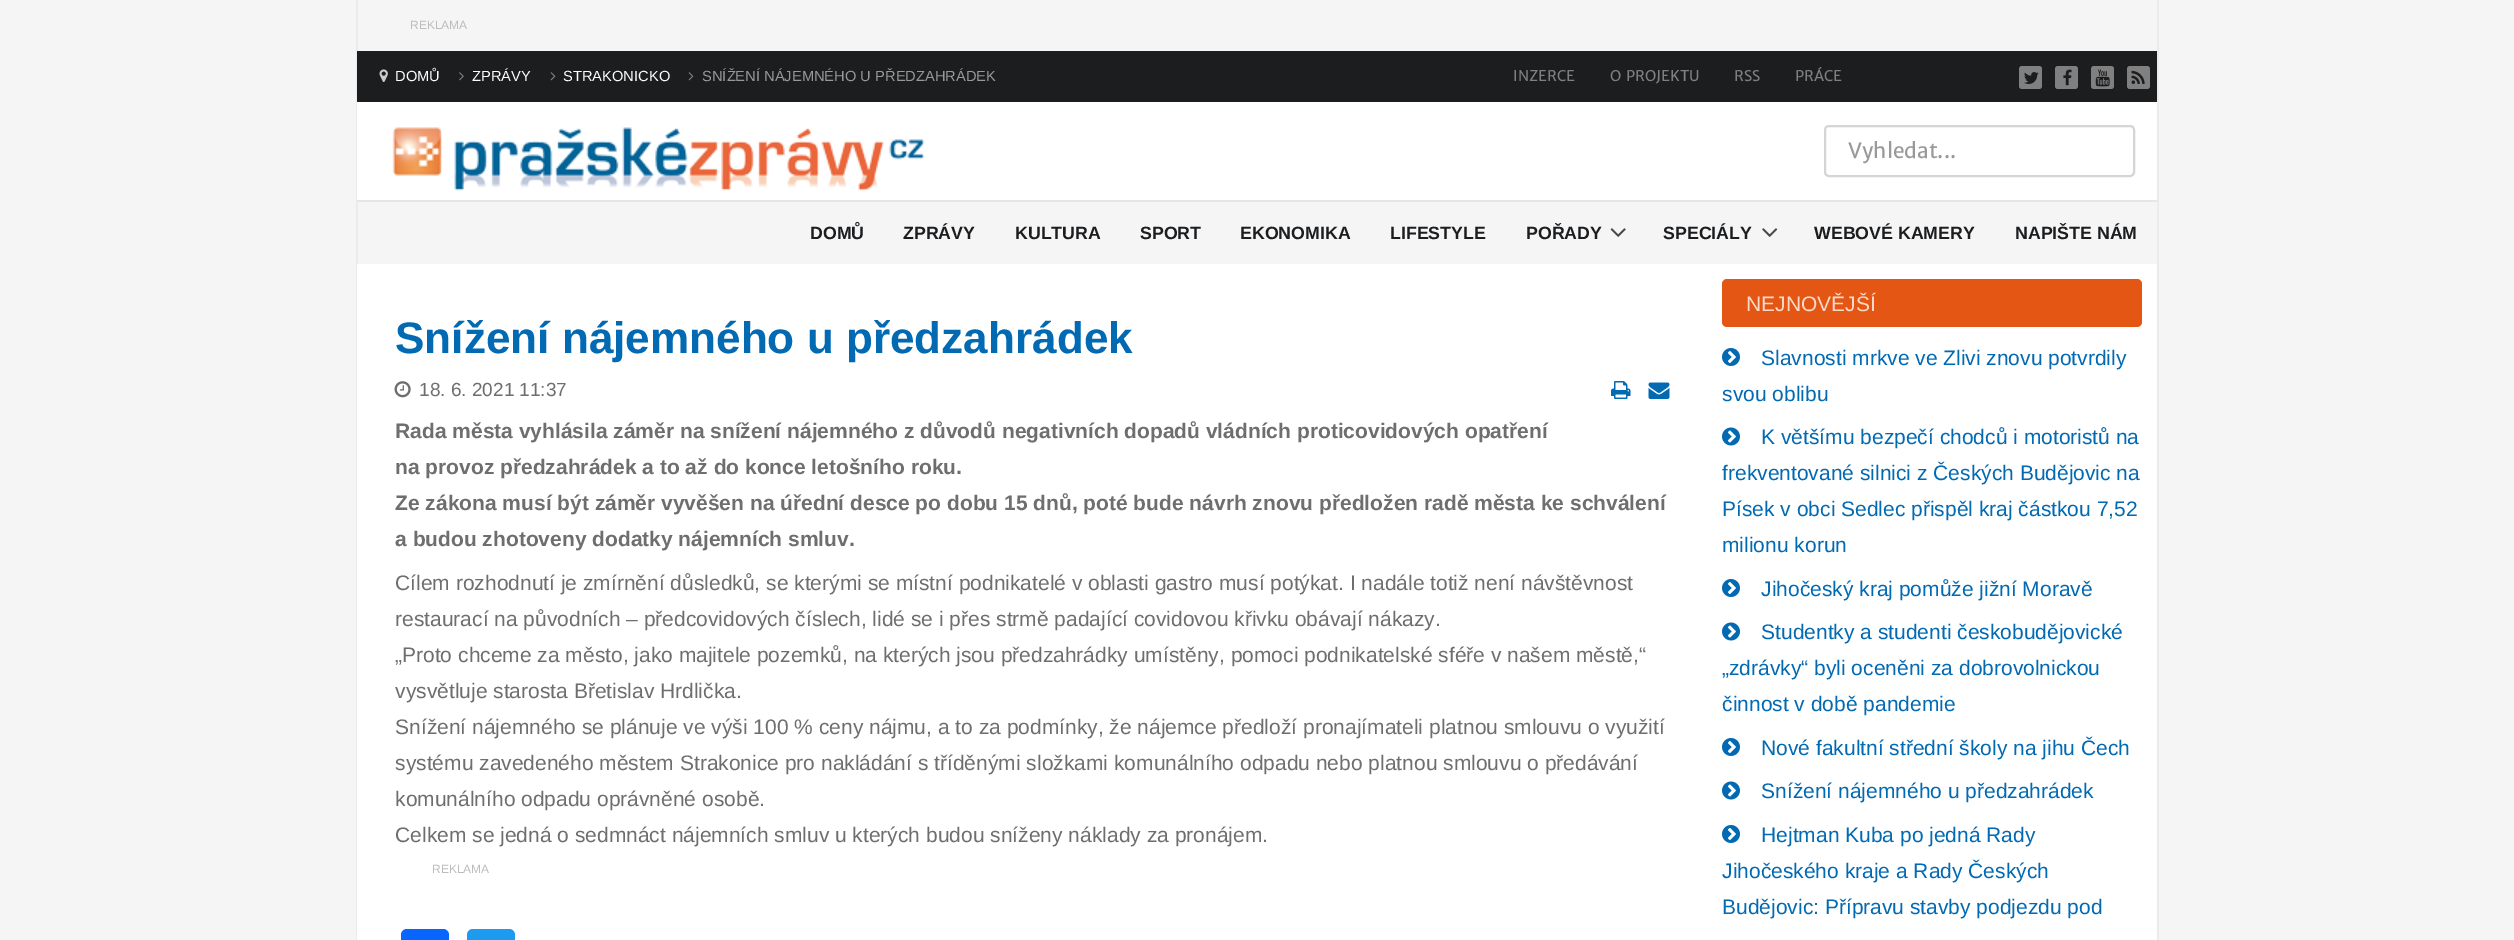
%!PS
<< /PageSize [2514 940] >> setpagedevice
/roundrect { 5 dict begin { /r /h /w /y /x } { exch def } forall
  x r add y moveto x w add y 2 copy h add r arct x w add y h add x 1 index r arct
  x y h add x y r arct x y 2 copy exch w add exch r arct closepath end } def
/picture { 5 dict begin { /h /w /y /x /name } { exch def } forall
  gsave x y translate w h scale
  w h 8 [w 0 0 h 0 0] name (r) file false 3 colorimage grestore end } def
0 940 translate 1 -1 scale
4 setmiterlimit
0.961 setgray
0 0 2514 940 rectfill
0.922 setgray
2157 0 2 940 rectfill
356 0 2 264 rectfill
/LiberationSans-Regular [12 0 0 -12 0 0] selectfont
0.737 setgray
410 29 moveto (REKLAMA) show
0.11 0.114 0.122 setrgbcolor
357 51 1800 51 rectfill
(img1.rgb) 379 69 9 13 picture
/LiberationSans-Regular [14.7 0 0 -14.7 0 0] selectfont
1 setgray
395 81 moveto (DOMŮ) show
(img2.rgb) 459 72 5 9 picture
472 81 moveto (ZPRÁVY) show
(img3.rgb) 550 72 6 9 picture
563 81 moveto (STRAKONICKO) show
(img3.rgb) 688 72 6 9 picture
0.6 setgray
702 81 moveto (SNÍŽENÍ NÁJEMNÉHO U PŘEDZAHRÁDEK) show
/MerriweatherSans-Regular [14.7 0 0 -14.7 0 0] selectfont
0.502 setgray
1513 81 moveto (INZERCE) show
1610 81 moveto (O PROJEKTU) show
1734 81 moveto (RSS) show
1795 81 moveto (PRÁCE) show
2019 66 23 23 3 roundrect fill
(img4.rgb) 2024 72 15 12 picture
2055 66 23 23 3 roundrect fill
(img5.rgb) 2063 69 9 17 picture
2091 66 23 23 3 roundrect fill
(img6.rgb) 2095 69 15 18 picture
2127 66 23 23 3 roundrect fill
(img7.rgb) 2131 70 14 14 picture
1 setgray
357 102 1800 98 rectfill
0.902 setgray
357 200 1800 2 rectfill
(img8.rgb) 392 127 533 64 picture
0.835 setgray
2 setlinewidth
1825 126 309 50 4 roundrect stroke
/MerriweatherSans-Regular [21 0 0 -21 0 0] selectfont
0.6 setgray
1848 158 moveto (Vyhledat...) show
/LiberationSans-Bold [17.75 0 0 -17.75 0 0] selectfont
0.11 0.114 0.122 setrgbcolor
810 239 moveto (DOMŮ) show
903 239 moveto (ZPRÁVY) show
1015 239 moveto (KULTURA) show
1140 239 moveto (SPORT) show
1240 239 moveto (EKONOMIKA) show
1390 239 moveto (LIFESTYLE) show
1526 239 moveto (POŘADY) show
(img9.rgb) 1610 228 16 9 picture
1663 239 moveto (SPECIÁLY) show
(img10.rgb) 1762 228 16 9 picture
1814 239 moveto (WEBOVÉ KAMERY) show
2015 239 moveto (NAPIŠTE NÁM) show
0.922 setgray
356 264 1 676 rectfill
1 setgray
357 264 1800 676 rectfill
/LiberationSans-Bold [44.1 0 0 -44.1 0 0] selectfont
0.008 0.412 0.702 setrgbcolor
395 353 moveto (Snížení nájemného u předzahrádek) show
(img11.rgb) 394 381 17 17 picture
/LiberationSans-Regular [19 0 0 -19 0 0] selectfont
0.431 setgray
419 396 moveto (18. 6. 2021 11:37) show
(img12.rgb) 1611 381 20 18 picture
(img13.rgb) 1648 382 22 17 picture
/LiberationSans-Bold [21 0 0 -21 0 0] selectfont
395 438 moveto (Rada města vyhlásila záměr na snížení nájemného z důvodů negativních dopadů vládních proticovidových opatření) show
395 474 moveto (na provoz předzahrádek a to až do konce letošního roku.) show
395 510 moveto (Ze zákona musí být záměr vyvěšen na úřední desce po dobu 15 dnů, poté bude návrh znovu předložen radě města ke schválení) show
395 546 moveto (a budou zhotoveny dodatky nájemních smluv.) show
/LiberationSans-Regular [21 0 0 -21 0 0] selectfont
395 590 moveto (Cílem rozhodnutí je zmírnění důsledků, se kterými se místní podnikatelé v oblasti gastro musí potýkat. I nadále totiž není návštěvnost) show
395 626 moveto (restaurací na původních – předcovidových číslech, lidé se i přes strmě padající covidovou křivku obávají nákazy.) show
395 662 moveto („Proto chceme za město, jako majitele pozemků, na kterých jsou předzahrádky umístěny, pomoci podnikatelské sféře v našem městě,“) show
395 698 moveto (vysvětluje starosta Břetislav Hrdlička.) show
395 734 moveto (Snížení nájemného se plánuje ve výši 100 % ceny nájmu, a to za podmínky, že nájemce předloží pronajímateli platnou smlouvu o využití) show
395 770 moveto (systému zavedeného městem Strakonice pro nakládání s tříděnými složkami komunálního odpadu nebo platnou smlouvu o předávání) show
395 806 moveto (komunálního odpadu oprávněné osobě.) show
395 842 moveto (Celkem se jedná o sedmnáct nájemních smluv u kterých budou sníženy náklady za pronájem.) show
/LiberationSans-Regular [12 0 0 -12 0 0] selectfont
0.737 setgray
432 873 moveto (REKLAMA) show
0.031 0.4 1 setrgbcolor
401 929 48 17 6 roundrect fill
0.114 0.608 0.941 setrgbcolor
467 929 48 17 6 roundrect fill
0.89 0.337 0.078 setrgbcolor
1722 279 420 48 5 roundrect fill
/LiberationSans-Regular [21 0 0 -21 0 0] selectfont
0.98 0.851 0.788 setrgbcolor
1746 311 moveto (NEJNOVĚJŠÍ) show
(img14.rgb) 1722 348 18 18 picture
0.008 0.412 0.702 setrgbcolor
1761 365 moveto (Slavnosti mrkve ve Zlivi znovu potvrdily) show
1722 401 moveto (svou oblibu) show
(img15.rgb) 1722 427 18 19 picture
1761 444 moveto (K většímu bezpečí chodců i motoristů na) show
1722 480 moveto (frekventované silnici z Českých Budějovic na) show
1722 516 moveto (Písek v obci Sedlec přispěl kraj částkou 7,52) show
1722 552 moveto (milionu korun) show
(img14.rgb) 1722 579 18 18 picture
1761 596 moveto (Jihočeský kraj pomůže jižní Moravě) show
(img15.rgb) 1722 622 18 19 picture
1761 639 moveto (Studentky a studenti českobudějovické) show
1722 675 moveto („zdrávky“ byli oceněni za dobrovolnickou) show
1722 711 moveto (činnost v době pandemie) show
(img14.rgb) 1722 738 18 18 picture
1761 755 moveto (Nové fakultní střední školy na jihu Čech) show
(img15.rgb) 1722 781 18 19 picture
1761 798 moveto (Snížení nájemného u předzahrádek) show
(img14.rgb) 1722 825 18 18 picture
1761 842 moveto (Hejtman Kuba po jedná Rady) show
1722 878 moveto (Jihočeského kraje a Rady Českých) show
1722 914 moveto (Budějovic: Přípravu stavby podjezdu pod) show
showpage
